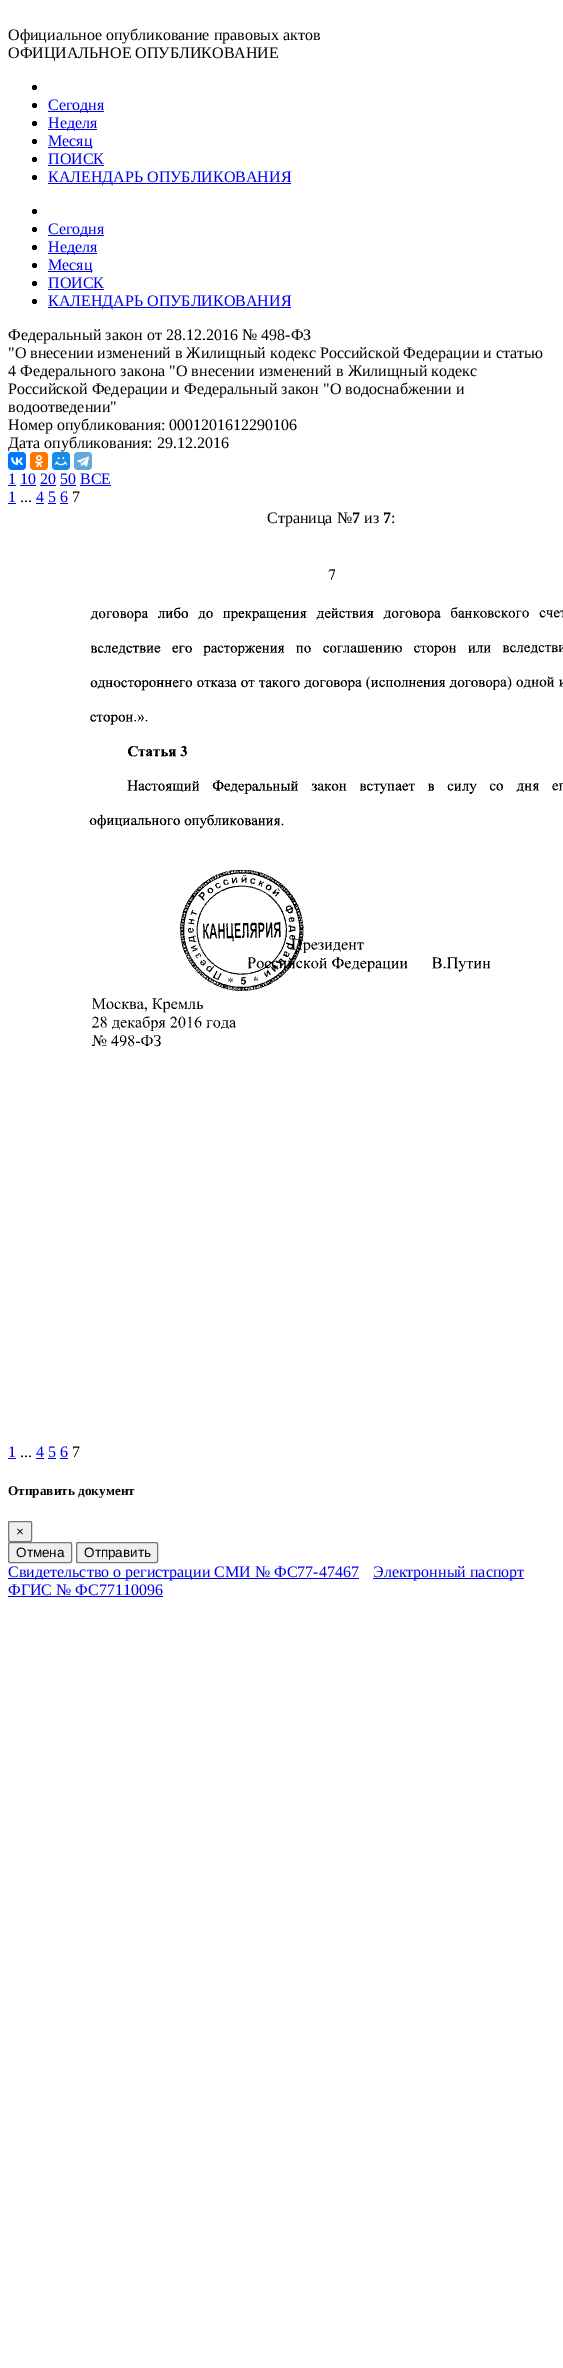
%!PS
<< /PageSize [563 2368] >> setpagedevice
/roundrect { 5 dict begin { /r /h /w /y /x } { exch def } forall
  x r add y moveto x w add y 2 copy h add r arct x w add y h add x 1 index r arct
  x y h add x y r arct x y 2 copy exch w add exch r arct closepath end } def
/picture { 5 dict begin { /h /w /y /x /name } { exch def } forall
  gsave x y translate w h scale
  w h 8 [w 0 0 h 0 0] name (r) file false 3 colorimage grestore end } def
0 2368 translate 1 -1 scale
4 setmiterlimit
1 setgray
0 0 563 2368 rectfill
/LiberationSerif-Regular [16 0 0 -16 0 0] selectfont
0 setgray
8 40 moveto (Официальное опубликование правовых актов) show
8 58 moveto (ОФИЦИАЛЬНОЕ ОПУБЛИКОВАНИЕ) show
newpath 34.5 87.5 2.5 0 360 arc closepath fill
newpath 34.5 105.5 2.5 0 360 arc closepath fill
0 0 0.933 setrgbcolor
48 111 56 1 rectfill
48 110 moveto (Сегодня) show
0 setgray
newpath 34.5 123.5 2.5 0 360 arc closepath fill
0 0 0.933 setrgbcolor
48 129 49 1 rectfill
48 128 moveto (Неделя) show
0 setgray
newpath 34.5 141.5 2.5 0 360 arc closepath fill
0 0 0.933 setrgbcolor
48 147 44 1 rectfill
48 146 moveto (Месяц) show
0 setgray
newpath 34.5 159.5 2.5 0 360 arc closepath fill
0 0 0.933 setrgbcolor
48 164 moveto (ПОИСК) show
48 165 56 1 rectfill
0 setgray
newpath 34.5 177.5 2.5 0 360 arc closepath fill
0 0 0.933 setrgbcolor
48 183 243 1 rectfill
48 182 moveto (КАЛЕНДАРЬ ОПУБЛИКОВАНИЯ) show
0 setgray
newpath 34.5 211.5 2.5 0 360 arc closepath fill
newpath 34.5 229.5 2.5 0 360 arc closepath fill
0 0 0.933 setrgbcolor
48 235 56 1 rectfill
48 234 moveto (Сегодня) show
0 setgray
newpath 34.5 247.5 2.5 0 360 arc closepath fill
0 0 0.933 setrgbcolor
48 253 49 1 rectfill
48 252 moveto (Неделя) show
0 setgray
newpath 34.5 265.5 2.5 0 360 arc closepath fill
0 0 0.933 setrgbcolor
48 271 44 1 rectfill
48 270 moveto (Месяц) show
0 setgray
newpath 34.5 283.5 2.5 0 360 arc closepath fill
0 0 0.933 setrgbcolor
48 288 moveto (ПОИСК) show
48 289 56 1 rectfill
0 setgray
newpath 34.5 301.5 2.5 0 360 arc closepath fill
0 0 0.933 setrgbcolor
48 307 243 1 rectfill
48 306 moveto (КАЛЕНДАРЬ ОПУБЛИКОВАНИЯ) show
0 setgray
8 340 moveto (Федеральный закон от 28.12.2016 № 498-ФЗ) show
8 358 moveto ("О внесении изменений в Жилищный кодекс Российской Федерации и статью) show
8 376 moveto (4 Федерального закона "О внесении изменений в Жилищный кодекс) show
8 394 moveto (Российской Федерации и Федеральный закон "О водоснабжении и) show
8 412 moveto (водоотведении") show
8 430 moveto (Номер опубликования: 0001201612290106) show
8 448 moveto (Дата опубликования: 29.12.2016) show
0 0.467 1 setrgbcolor
8 452 18 18 4 roundrect fill
(img1.rgb) 11 457 12 8 picture
1 0.467 0 setrgbcolor
30 452 18 18 4 roundrect fill
(img2.rgb) 35 455 8 12 picture
0.086 0.553 0.886 setrgbcolor
52 452 18 18 4 roundrect fill
(img3.rgb) 55 457 12 9 picture
0.392 0.663 0.863 setrgbcolor
74 452 18 18 4 roundrect fill
(img4.rgb) 77 456 12 11 picture
0 0 0.933 setrgbcolor
8 484 moveto (1 10 20 50 ВСЕ) show
8 485 8 1 rectfill
20 485 16 1 rectfill
40 485 16 1 rectfill
60 485 16 1 rectfill
80 485 31 1 rectfill
8 502 moveto (1) show
8 503 8 1 rectfill
0 setgray
20 502 moveto (...) show
0 0 0.933 setrgbcolor
36 502 moveto (4 5 6) show
36 503 8 1 rectfill
0 setgray
72 502 moveto (7) show
0 0 0.933 setrgbcolor
48 503 8 1 rectfill
60 503 8 1 rectfill
0 setgray
267 523 moveto (Страница №) show
/LiberationSerif-Bold [16 0 0 -16 0 0] selectfont
352 523 moveto (7) show
/LiberationSerif-Regular [16 0 0 -16 0 0] selectfont
364 523 moveto (из) show
/LiberationSerif-Bold [16 0 0 -16 0 0] selectfont
383 523 moveto (7) show
/LiberationSerif-Regular [16 0 0 -16 0 0] selectfont
391 523 moveto (:) show
(img5.rgb) 89 569 474 478 picture
0 0 0.933 setrgbcolor
8 1457 moveto (1) show
8 1458 8 1 rectfill
0 setgray
20 1457 moveto (...) show
0 0 0.933 setrgbcolor
36 1457 moveto (4 5 6) show
36 1458 8 1 rectfill
0 setgray
72 1457 moveto (7) show
0 0 0.933 setrgbcolor
48 1458 8 1 rectfill
60 1458 8 1 rectfill
/LiberationSerif-Bold [13.25 0 0 -13.25 0 0] selectfont
0 setgray
8 1495 moveto (Отправить документ) show
0.937 setgray
8.5 1521.5 23 20 1.5 roundrect gsave fill grestore
0.463 setgray
stroke
/LiberationSans-Regular [13.5 0 0 -13.5 0 0] selectfont
0 setgray
16 1536 moveto (×) show
0.937 setgray
8.5 1542.5 63 20 1.5 roundrect gsave fill grestore
0.463 setgray
stroke
0 setgray
16 1557 moveto (Отмена) show
0.937 setgray
76.5 1542.5 81 20 1.5 roundrect gsave fill grestore
0.463 setgray
stroke
0 setgray
84 1557 moveto (Отправить) show
0 0 0.933 setrgbcolor
8 1578 351 1 rectfill
/LiberationSerif-Regular [16 0 0 -16 0 0] selectfont
8 1577 moveto (Свидетельство о регистрации СМИ № ФС77-47467) show
373 1578 151 1 rectfill
373 1577 moveto (Электронный паспорт) show
8 1595 moveto (ФГИС № ФС77110096) show
8 1596 155 1 rectfill
showpage
